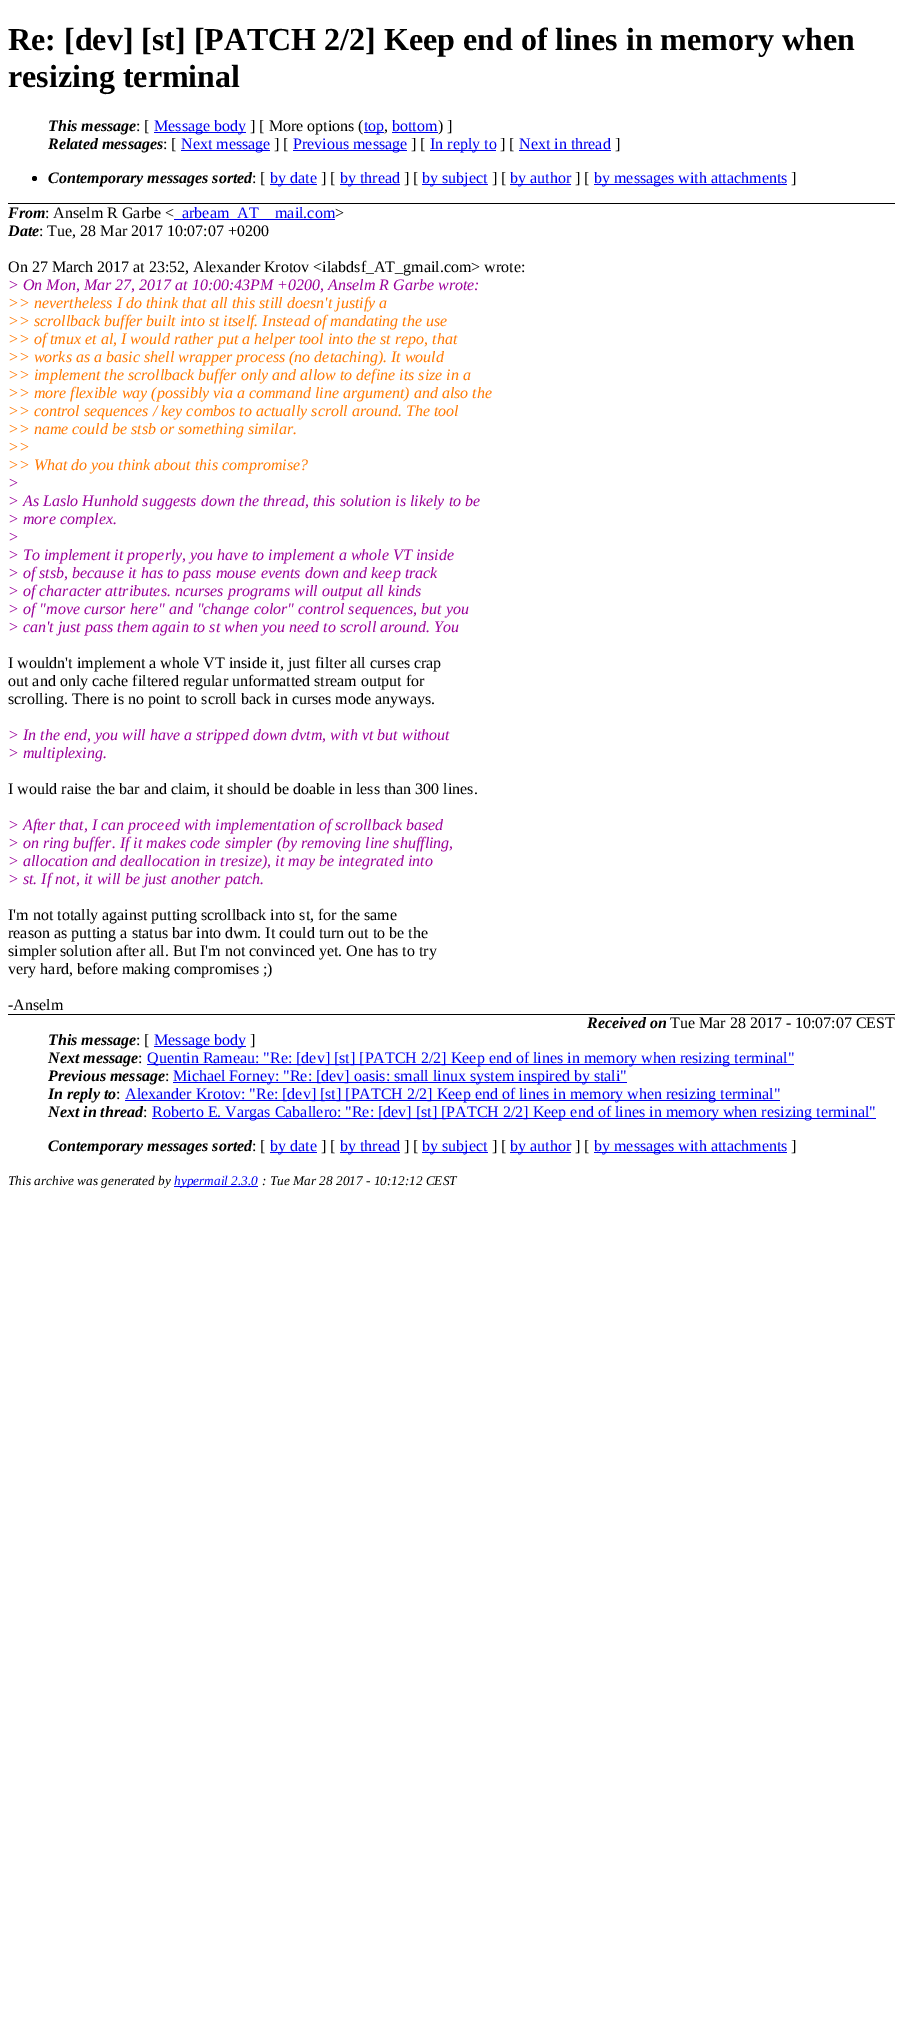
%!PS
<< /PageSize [903 2022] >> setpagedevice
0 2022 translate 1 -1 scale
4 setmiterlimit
1 setgray
0 0 903 2022 rectfill
0 setgray
8 203 887 1 rectfill
/LiberationSerif-Bold [32 0 0 -32 0 0] selectfont
8 50 moveto (Re: [dev] [st] [PATCH 2/2] Keep end of lines in memory when) show
8 87 moveto (resizing terminal) show
/LiberationSerif-BoldItalic [16 0 0 -16 0 0] selectfont
48 131 moveto (This message) show
/LiberationSerif-Regular [16 0 0 -16 0 0] selectfont
136 131 moveto (: [) show
0 0 0.933 setrgbcolor
154 132 92 1 rectfill
154 131 moveto (Message body) show
0 setgray
250 131 moveto (] [ More options \() show
0 0 0.933 setrgbcolor
364 132 20 1 rectfill
364 131 moveto (top) show
0 setgray
384 131 moveto (,) show
0 0 0.933 setrgbcolor
392 131 moveto (bottom) show
392 132 46 1 rectfill
0 setgray
438 131 moveto (\) ]) show
/LiberationSerif-BoldItalic [16 0 0 -16 0 0] selectfont
48 149 moveto (Related messages) show
/LiberationSerif-Regular [16 0 0 -16 0 0] selectfont
163 149 moveto (: [) show
0 0 0.933 setrgbcolor
181 150 89 1 rectfill
181 149 moveto (Next message) show
0 setgray
274 149 moveto (] [) show
0 0 0.933 setrgbcolor
293 150 114 1 rectfill
293 149 moveto (Previous message) show
0 setgray
411 149 moveto (] [) show
0 0 0.933 setrgbcolor
430 150 66 1 rectfill
430 149 moveto (In reply to) show
0 setgray
500 149 moveto (] [) show
0 0 0.933 setrgbcolor
519 149 moveto (Next in thread) show
519 150 92 1 rectfill
0 setgray
615 149 moveto (]) show
newpath 34.5 178.5 2.5 0 360 arc closepath fill
/LiberationSerif-BoldItalic [16 0 0 -16 0 0] selectfont
48 183 moveto (Contemporary messages sorted) show
/LiberationSerif-Regular [16 0 0 -16 0 0] selectfont
252 183 moveto (: [) show
0 0 0.933 setrgbcolor
270 184 47 1 rectfill
270 183 moveto (by date) show
0 setgray
321 183 moveto (] [) show
0 0 0.933 setrgbcolor
340 184 60 1 rectfill
340 183 moveto (by thread) show
0 setgray
404 183 moveto (] [) show
0 0 0.933 setrgbcolor
422 184 66 1 rectfill
422 183 moveto (by subject) show
0 setgray
492 183 moveto (] [) show
0 0 0.933 setrgbcolor
510 184 61 1 rectfill
510 183 moveto (by author) show
0 setgray
575 183 moveto (] [) show
0 0 0.933 setrgbcolor
594 184 193 1 rectfill
594 183 moveto (by messages with attachments) show
0 setgray
791 183 moveto (]) show
/LiberationSerif-BoldItalic [16 0 0 -16 0 0] selectfont
8 218 moveto (From) show
/LiberationSerif-Regular [16 0 0 -16 0 0] selectfont
45 218 moveto (: Anselm R Garbe <) show
0 0 0.933 setrgbcolor
174 219 161 1 rectfill
182 218 moveto (arbeam_AT) show
275 218 moveto (mail.com) show
0 setgray
335 218 moveto (>) show
/LiberationSerif-BoldItalic [16 0 0 -16 0 0] selectfont
8 236 moveto (Date) show
/LiberationSerif-Regular [16 0 0 -16 0 0] selectfont
39 236 moveto (: Tue, 28 Mar 2017 10:07:07 +0200) show
8 272 moveto (On 27 March 2017 at 23:52, Alexander Krotov <ilabdsf_AT_gmail.com> wrote:) show
/LiberationSerif-Italic [16 0 0 -16 0 0] selectfont
0.6 0 0.6 setrgbcolor
8 290 moveto (> On Mon, Mar 27, 2017 at 10:00:43PM +0200, Anselm R Garbe wrote:) show
1 0.467 0 setrgbcolor
8 308 moveto (>> nevertheless I do think that all this still doesn't justify a) show
8 326 moveto (>> scrollback buffer built into st itself. Instead of mandating the use) show
8 344 moveto (>> of tmux et al, I would rather put a helper tool into the st repo, that) show
8 362 moveto (>> works as a basic shell wrapper process \(no detaching\). It would) show
8 380 moveto (>> implement the scrollback buffer only and allow to define its size in a) show
8 398 moveto (>> more flexible way \(possibly via a command line argument\) and also the) show
8 416 moveto (>> control sequences / key combos to actually scroll around. The tool) show
8 434 moveto (>> name could be stsb or something similar.) show
8 452 moveto (>>) show
8 470 moveto (>> What do you think about this compromise?) show
0.6 0 0.6 setrgbcolor
8 488 moveto (>) show
8 506 moveto (> As Laslo Hunhold suggests down the thread, this solution is likely to be) show
8 524 moveto (> more complex.) show
8 542 moveto (>) show
8 560 moveto (> To implement it properly, you have to implement a whole VT inside) show
8 578 moveto (> of stsb, because it has to pass mouse events down and keep track) show
8 596 moveto (> of character attributes. ncurses programs will output all kinds) show
8 614 moveto (> of "move cursor here" and "change color" control sequences, but you) show
8 632 moveto (> can't just pass them again to st when you need to scroll around. You) show
/LiberationSerif-Regular [16 0 0 -16 0 0] selectfont
0 setgray
8 668 moveto (I wouldn't implement a whole VT inside it, just filter all curses crap) show
8 686 moveto (out and only cache filtered regular unformatted stream output for) show
8 704 moveto (scrolling. There is no point to scroll back in curses mode anyways.) show
/LiberationSerif-Italic [16 0 0 -16 0 0] selectfont
0.6 0 0.6 setrgbcolor
8 740 moveto (> In the end, you will have a stripped down dvtm, with vt but without) show
8 758 moveto (> multiplexing.) show
/LiberationSerif-Regular [16 0 0 -16 0 0] selectfont
0 setgray
8 794 moveto (I would raise the bar and claim, it should be doable in less than 300 lines.) show
/LiberationSerif-Italic [16 0 0 -16 0 0] selectfont
0.6 0 0.6 setrgbcolor
8 830 moveto (> After that, I can proceed with implementation of scrollback based) show
8 848 moveto (> on ring buffer. If it makes code simpler \(by removing line shuffling,) show
8 866 moveto (> allocation and deallocation in tresize\), it may be integrated into) show
8 884 moveto (> st. If not, it will be just another patch.) show
/LiberationSerif-Regular [16 0 0 -16 0 0] selectfont
0 setgray
8 920 moveto (I'm not totally against putting scrollback into st, for the same) show
8 938 moveto (reason as putting a status bar into dwm. It could turn out to be the) show
8 956 moveto (simpler solution after all. But I'm not convinced yet. One has to try) show
8 974 moveto (very hard, before making compromises ;\)) show
8 1010 moveto (-Anselm) show
/LiberationSerif-BoldItalic [16 0 0 -16 0 0] selectfont
587 1028 moveto (Received on) show
/LiberationSerif-Regular [16 0 0 -16 0 0] selectfont
670 1028 moveto (Tue Mar 28 2017 - 10:07:07 CEST) show
8 1014 887 1 rectfill
/LiberationSerif-BoldItalic [16 0 0 -16 0 0] selectfont
48 1045 moveto (This message) show
/LiberationSerif-Regular [16 0 0 -16 0 0] selectfont
136 1045 moveto (: [) show
0 0 0.933 setrgbcolor
154 1046 92 1 rectfill
154 1045 moveto (Message body) show
0 setgray
250 1045 moveto (]) show
/LiberationSerif-BoldItalic [16 0 0 -16 0 0] selectfont
48 1063 moveto (Next message) show
/LiberationSerif-Regular [16 0 0 -16 0 0] selectfont
138 1063 moveto (:) show
0 0 0.933 setrgbcolor
147 1064 647 1 rectfill
147 1063 moveto (Quentin Rameau: "Re: [dev] [st] [PATCH 2/2] Keep end of lines in memory when resizing terminal") show
/LiberationSerif-BoldItalic [16 0 0 -16 0 0] selectfont
0 setgray
48 1081 moveto (Previous message) show
/LiberationSerif-Regular [16 0 0 -16 0 0] selectfont
165 1081 moveto (:) show
0 0 0.933 setrgbcolor
173 1082 454 1 rectfill
173 1081 moveto (Michael Forney: "Re: [dev] oasis: small linux system inspired by stali") show
/LiberationSerif-BoldItalic [16 0 0 -16 0 0] selectfont
0 setgray
48 1099 moveto (In reply to) show
/LiberationSerif-Regular [16 0 0 -16 0 0] selectfont
116 1099 moveto (:) show
0 0 0.933 setrgbcolor
125 1100 655 1 rectfill
125 1099 moveto (Alexander Krotov: "Re: [dev] [st] [PATCH 2/2] Keep end of lines in memory when resizing terminal") show
/LiberationSerif-BoldItalic [16 0 0 -16 0 0] selectfont
0 setgray
48 1117 moveto (Next in thread) show
/LiberationSerif-Regular [16 0 0 -16 0 0] selectfont
143 1117 moveto (:) show
0 0 0.933 setrgbcolor
152 1118 724 1 rectfill
152 1117 moveto (Roberto E. Vargas Caballero: "Re: [dev] [st] [PATCH 2/2] Keep end of lines in memory when resizing terminal") show
/LiberationSerif-BoldItalic [16 0 0 -16 0 0] selectfont
0 setgray
48 1151 moveto (Contemporary messages sorted) show
/LiberationSerif-Regular [16 0 0 -16 0 0] selectfont
252 1151 moveto (: [) show
0 0 0.933 setrgbcolor
270 1152 47 1 rectfill
270 1151 moveto (by date) show
0 setgray
321 1151 moveto (] [) show
0 0 0.933 setrgbcolor
340 1152 60 1 rectfill
340 1151 moveto (by thread) show
0 setgray
404 1151 moveto (] [) show
0 0 0.933 setrgbcolor
422 1152 66 1 rectfill
422 1151 moveto (by subject) show
0 setgray
492 1151 moveto (] [) show
0 0 0.933 setrgbcolor
510 1152 61 1 rectfill
510 1151 moveto (by author) show
0 setgray
575 1151 moveto (] [) show
0 0 0.933 setrgbcolor
594 1152 193 1 rectfill
594 1151 moveto (by messages with attachments) show
0 setgray
791 1151 moveto (]) show
/LiberationSerif-Italic [13.3 0 0 -13.3 0 0] selectfont
8 1185 moveto (This archive was generated by) show
0 0 0.933 setrgbcolor
174 1186 84 1 rectfill
174 1185 moveto (hypermail 2.3.0) show
0 setgray
262 1185 moveto (: Tue Mar 28 2017 - 10:12:12 CEST) show
showpage
